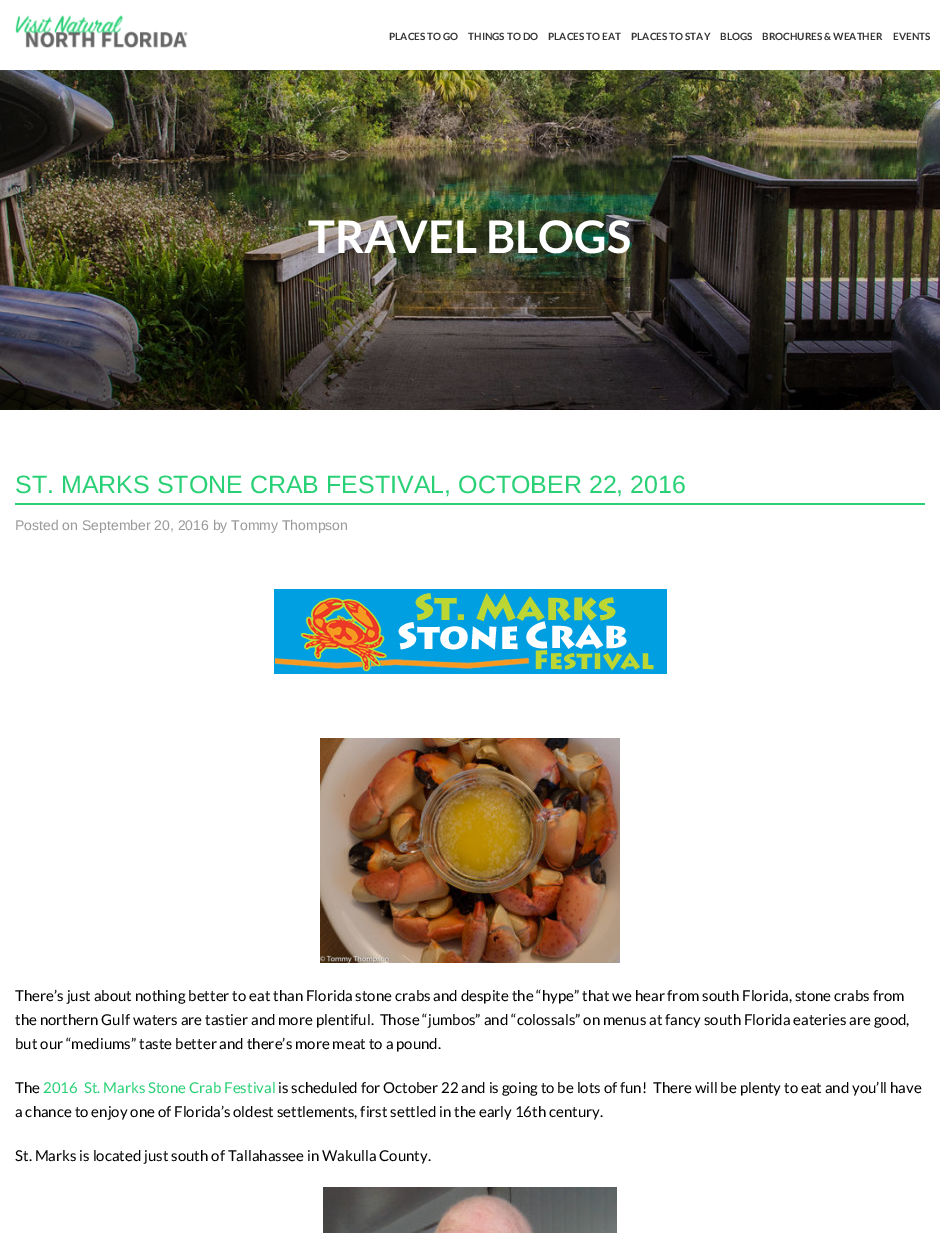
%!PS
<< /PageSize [940 1233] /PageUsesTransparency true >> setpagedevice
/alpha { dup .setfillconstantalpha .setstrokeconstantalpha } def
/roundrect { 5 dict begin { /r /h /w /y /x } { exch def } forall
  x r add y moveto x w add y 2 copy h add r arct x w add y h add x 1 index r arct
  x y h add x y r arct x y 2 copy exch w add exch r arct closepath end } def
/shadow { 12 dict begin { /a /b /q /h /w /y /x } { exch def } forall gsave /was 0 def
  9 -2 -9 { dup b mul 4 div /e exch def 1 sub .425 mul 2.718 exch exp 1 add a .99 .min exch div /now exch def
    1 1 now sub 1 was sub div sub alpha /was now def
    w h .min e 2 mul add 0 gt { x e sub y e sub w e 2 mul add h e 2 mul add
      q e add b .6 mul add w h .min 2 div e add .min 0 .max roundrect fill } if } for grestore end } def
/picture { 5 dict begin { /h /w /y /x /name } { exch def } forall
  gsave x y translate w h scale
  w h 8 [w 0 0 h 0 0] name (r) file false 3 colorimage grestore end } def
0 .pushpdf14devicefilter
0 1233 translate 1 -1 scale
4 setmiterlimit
1 setgray
0 0 940 1233 rectfill
(img2.rgb) 0 70 940 340 picture
0.2 alpha
0 setgray
0 70 940 340 rectfill
1 alpha
0 3 940 70 0 5 0.1 shadow
1 setgray
0 0 940 70 rectfill
(img1.rgb) 15 15 173 33 picture
/Lato-Bold [10 0 0 -10 0 0] selectfont
0.2 setgray
389 40 moveto (PLACES TO GO) show
468 40 moveto (THINGS TO DO) show
548 40 moveto (PLACES TO EAT) show
631 40 moveto (PLACES TO STAY) show
720 40 moveto (BLOGS) show
762 40 moveto (BROCHURES & WEATHER) show
893 40 moveto (EVENTS) show
/Lato-Bold [45 0 0 -45 0 0] selectfont
1 setgray
308 253 moveto (TRAVEL BLOGS) show
0.165 0.82 0.455 setrgbcolor
15 503 910 2 rectfill
/LiberationSans-Regular [25 0 0 -25 0 0] selectfont
0.165 0.816 0.459 setrgbcolor
15 493 moveto (ST. MARKS STONE CRAB FESTIVAL, OCTOBER 22, 2016) show
/LiberationSans-Regular [14 0 0 -14 0 0] selectfont
0.6 setgray
15 530 moveto (Posted on September 20, 2016 by Tommy Thompson) show
(img3.rgb) 274 589 393 85 picture
(img4.rgb) 320 738 300 225 picture
/Lato-Regular [15 0 0 -15 0 0] selectfont
0 setgray
15 1001 moveto (There’s just about nothing better to eat than Florida stone crabs and despite the “hype” that we hear from south Florida, stone crabs from) show
15 1025 moveto (the northern Gulf waters are tastier and more plentiful.  Those “jumbos” and “colossals” on menus at fancy south Florida eateries are good,) show
15 1049 moveto (but our “mediums” taste better and there’s more meat to a pound.) show
15 1093 moveto (The) show
0.165 0.816 0.459 setrgbcolor
43 1093 moveto (2016  St. Marks Stone Crab Festival) show
0 setgray
278 1093 moveto (is scheduled for October 22 and is going to be lots of fun!  There will be plenty to eat and you’ll have) show
15 1117 moveto (a chance to enjoy one of Florida’s oldest settlements, first settled in the early 16th century.) show
15 1161 moveto (St. Marks is located just south of Tallahassee in Wakulla County.) show
(img5.rgb) 323 1187 294 46 picture
.poppdf14devicefilter showpage
